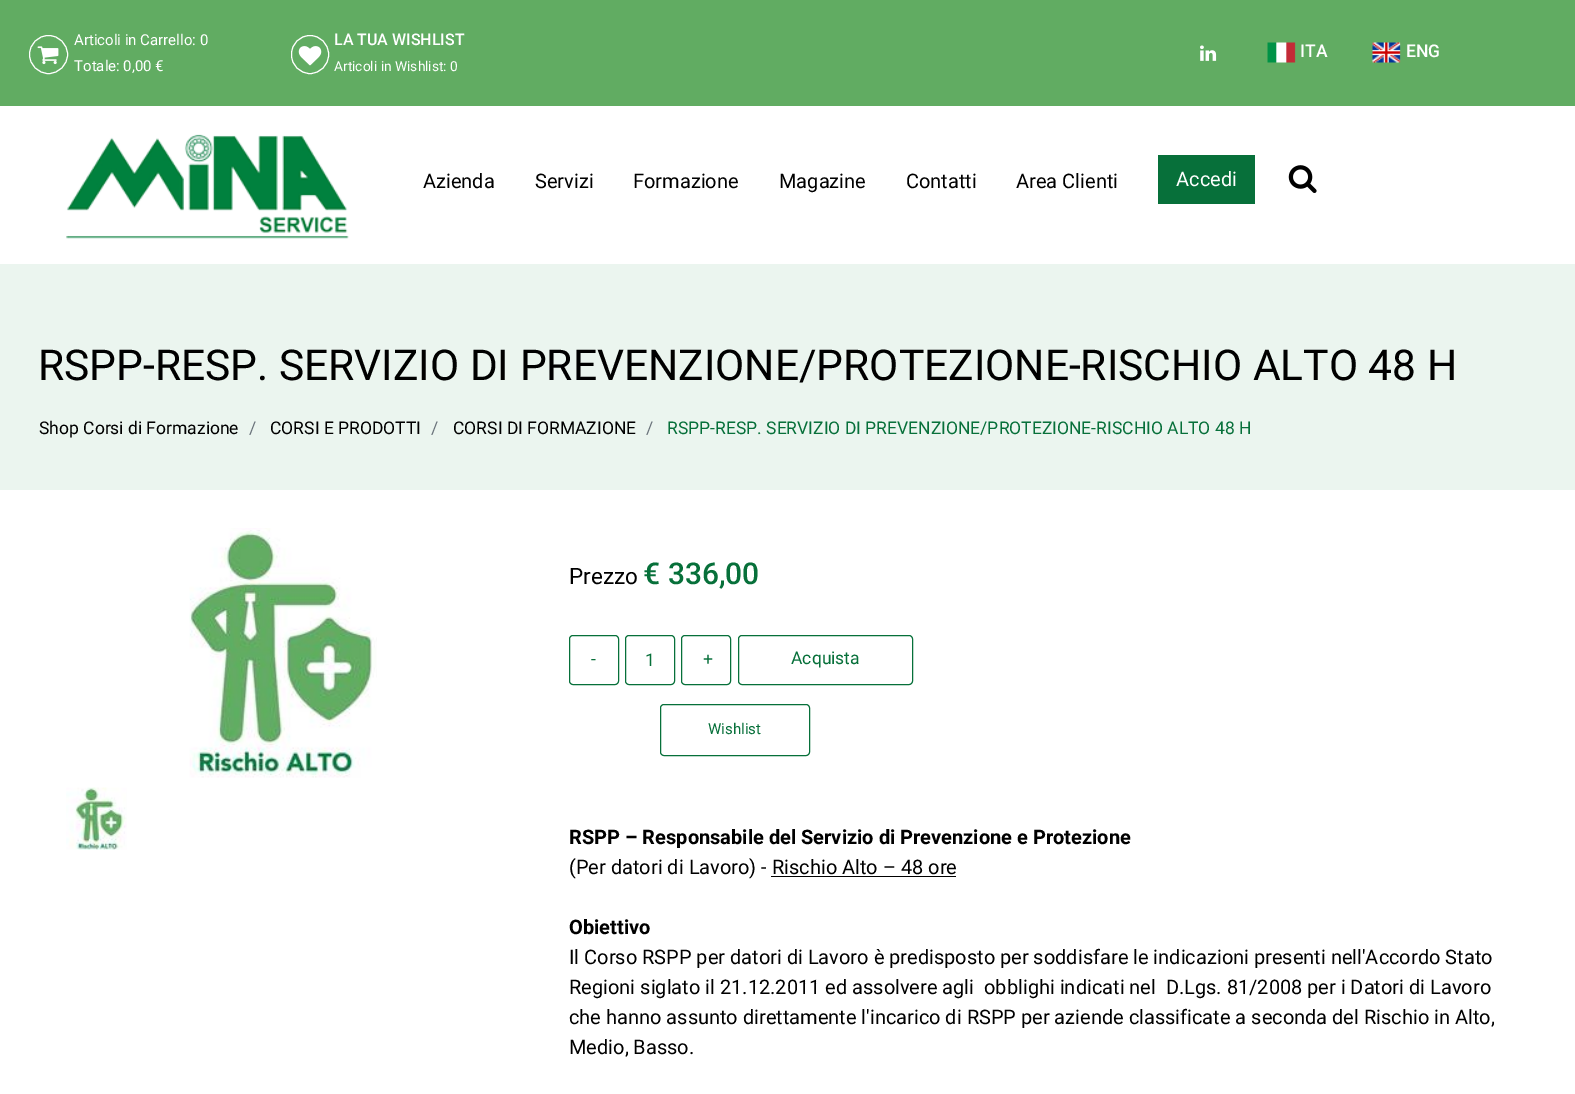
%!PS
<< /PageSize [1575 1094] >> setpagedevice
/roundrect { 5 dict begin { /r /h /w /y /x } { exch def } forall
  x r add y moveto x w add y 2 copy h add r arct x w add y h add x 1 index r arct
  x y h add x y r arct x y 2 copy exch w add exch r arct closepath end } def
/picture { 5 dict begin { /h /w /y /x /name } { exch def } forall
  gsave x y translate w h scale
  w h 8 [w 0 0 h 0 0] name (r) file false 3 colorimage grestore end } def
0 1094 translate 1 -1 scale
4 setmiterlimit
1 setgray
0 0 1575 1094 rectfill
0.38 0.675 0.384 setrgbcolor
0 0 1575 106 rectfill
1 setgray
newpath 48.5 54.5 19 0 360 arc closepath stroke
(img1.rgb) 37 46 22 19 picture
/Roboto-Regular [15 0 0 -15 0 0] selectfont
74 45 moveto (Articoli in Carrello: 0) show
74 71 moveto (Totale: 0,00 €) show
291.5 35.5 37 38 18.5 roundrect stroke
(img2.rgb) 298 46 24 20 picture
/Roboto-Medium [16 0 0 -16 0 0] selectfont
334 45 moveto (LA TUA WISHLIST) show
/Roboto-Regular [13.75 0 0 -13.75 0 0] selectfont
334 71 moveto (Articoli in Wishlist: 0) show
(img3.rgb) 1200 45 17 16 picture
(img4.rgb) 1267 42 29 21 picture
/Roboto-Medium [17.5 0 0 -17.5 0 0] selectfont
1300 57 moveto (ITA) show
(img5.rgb) 1372 42 29 21 picture
1406 57 moveto (ENG) show
(img6.rgb) 66 134 283 105 picture
/Roboto-Regular [20 0 0 -20 0 0] selectfont
0 setgray
423 188 moveto (Azienda) show
535 188 moveto (Servizi) show
633 188 moveto (Formazione) show
779 188 moveto (Magazine) show
906 188 moveto (Contatti) show
1016 188 moveto (Area Clienti) show
0.027 0.439 0.227 setrgbcolor
1158 155 97 49 rectfill
1 setgray
1176 186 moveto (Accedi) show
(img7.rgb) 1288 165 29 28 picture
0.922 0.961 0.937 setrgbcolor
0 264 1575 226 rectfill
/Roboto-Regular [42.5 0 0 -42.5 0 0] selectfont
0 setgray
38 380 moveto (RSPP-RESP. SERVIZIO DI PREVENZIONE/PROTEZIONE-RISCHIO ALTO 48 H) show
/Roboto-Regular [17.5 0 0 -17.5 0 0] selectfont
39 434 moveto (Shop Corsi di Formazione) show
0.424 0.459 0.49 setrgbcolor
249 434 moveto (/) show
0 setgray
270 434 moveto (CORSI E PRODOTTI) show
0.424 0.459 0.49 setrgbcolor
431 434 moveto (/) show
0 setgray
453 434 moveto (CORSI DI FORMAZIONE) show
0.424 0.459 0.49 setrgbcolor
646 434 moveto (/) show
0.027 0.439 0.227 setrgbcolor
667 434 moveto (RSPP-RESP. SERVIZIO DI PREVENZIONE/PROTEZIONE-RISCHIO ALTO 48 H) show
(img8.rgb) 189 528 188 250 picture
(img9.rgb) 66 787 61 63 picture
/Roboto-Regular [22.5 0 0 -22.5 0 0] selectfont
0 setgray
569 584 moveto (Prezzo) show
/Roboto-Medium [30 0 0 -30 0 0] selectfont
0.027 0.439 0.227 setrgbcolor
643 584 moveto (€ 336,00) show
569.5 635.5 49 49 3.5 roundrect stroke
/Roboto-Regular [17.5 0 0 -17.5 0 0] selectfont
591 665 moveto (-) show
625.5 635.5 49 49 3.5 roundrect stroke
645 666 moveto (1) show
681.5 635.5 49 49 3.5 roundrect stroke
703 665 moveto (+) show
738.5 635.5 174 49 3.5 roundrect stroke
791 664 moveto (Acquista) show
660.5 704.5 149 51 3.5 roundrect stroke
/Roboto-Regular [15 0 0 -15 0 0] selectfont
708 734 moveto (Wishlist) show
/Roboto-Bold [20 0 0 -20 0 0] selectfont
0 setgray
569 844 moveto (RSPP – Responsabile del Servizio di Prevenzione e Protezione) show
/Roboto-Regular [20 0 0 -20 0 0] selectfont
569 874 moveto (\(Per datori di Lavoro\) - Rischio Alto – 48 ore) show
771 876 185 1 rectfill
/Roboto-Bold [20 0 0 -20 0 0] selectfont
569 934 moveto (Obiettivo) show
/Roboto-Regular [20 0 0 -20 0 0] selectfont
569 964 moveto (Il Corso RSPP per datori di Lavoro è predisposto per soddisfare le indicazioni presenti nell'Accordo Stato) show
569 994 moveto (Regioni siglato il 21.12.2011 ed assolvere agli  obblighi indicati nel  D.Lgs. 81/2008 per i Datori di Lavoro) show
569 1024 moveto (che hanno assunto direttamente l'incarico di RSPP per aziende classificate a seconda del Rischio in Alto,) show
569 1054 moveto (Medio, Basso.) show
showpage
